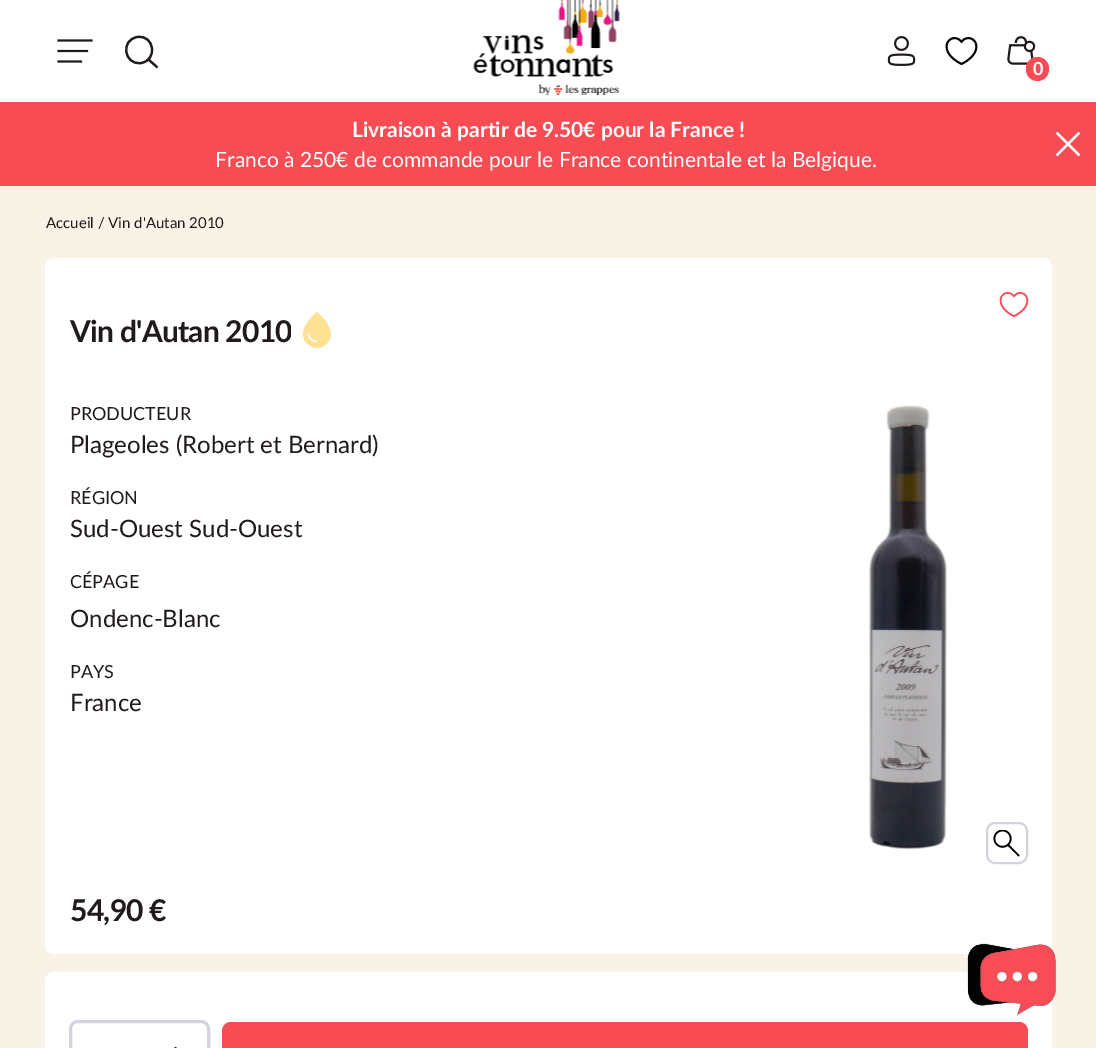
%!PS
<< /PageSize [1096 1048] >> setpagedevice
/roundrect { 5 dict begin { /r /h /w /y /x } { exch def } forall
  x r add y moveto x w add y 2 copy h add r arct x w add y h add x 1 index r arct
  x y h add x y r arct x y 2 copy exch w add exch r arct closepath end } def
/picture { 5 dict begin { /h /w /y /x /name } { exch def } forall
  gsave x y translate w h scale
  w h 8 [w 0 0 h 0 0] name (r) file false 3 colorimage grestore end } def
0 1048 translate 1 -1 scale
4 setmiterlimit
0.973 0.949 0.906 setrgbcolor
0 0 1096 1048 rectfill
1 setgray
0 0 1096 102 rectfill
(img1.rgb) 57 39 36 24 picture
0.125 0.102 0.11 setrgbcolor
2.2 setlinewidth
newpath 137.5 37 moveto 154.5 34.5 158 60.5 141 63 curveto 124 65.5 120 39.5 137.5 37 curveto closepath 149 60 moveto 157.5 67.5 lineto stroke
(img2.rgb) 473 0 147 96 picture
(img3.rgb) 887 36 29 30 picture
(img4.rgb) 945 37 33 29 picture
(img5.rgb) 1007 36 29 29 picture
0.973 0.298 0.333 setrgbcolor
1026 57 23 24 11.5 roundrect fill
/Lato-Bold [18 0 0 -18 0 0] selectfont
1 setgray
1033 75 moveto (0) show
0.973 0.298 0.333 setrgbcolor
0 102 1096 84 rectfill
/Lato-Bold [21 0 0 -21 0 0] selectfont
1 setgray
352 137 moveto (Livraison à partir de 9.50€ pour la France !) show
/Lato-Regular [21 0 0 -21 0 0] selectfont
215 167 moveto (Franco à 250€ de commande pour le France continentale et la Belgique.) show
(img6.rgb) 1055 131 26 26 picture
/Lato-Regular [15 0 0 -15 0 0] selectfont
0.125 0.102 0.11 setrgbcolor
46 228 moveto (Accueil / Vin d'Autan 2010) show
1 setgray
45 258 1007 696 9 roundrect fill
(img7.rgb) 999 291 30 27 picture
gsave
69 312 222 36 rectclip
/Lato-Bold [30 0 0 -30 0 0] selectfont
0.125 0.102 0.11 setrgbcolor
70 342 moveto -0.75 0 (Vin d'Autan 2010) ashow
grestore
(img8.rgb) 303 312 28 36 picture
/Lato-Regular [18 0 0 -18 0 0] selectfont
0.125 0.102 0.11 setrgbcolor
70 420 moveto (PRODUCTEUR) show
/Lato-Regular [24 0 0 -24 0 0] selectfont
70 453 moveto (Plageoles \(Robert et Bernard\)) show
/Lato-Regular [18 0 0 -18 0 0] selectfont
70 504 moveto (RÉGION) show
/Lato-Regular [24 0 0 -24 0 0] selectfont
70 537 moveto (Sud-Ouest Sud-Ouest) show
/Lato-Regular [18 0 0 -18 0 0] selectfont
70 588 moveto (CÉPAGE) show
/Lato-Regular [24 0 0 -24 0 0] selectfont
70 627 moveto (Ondenc-Blanc) show
/Lato-Regular [18 0 0 -18 0 0] selectfont
70 678 moveto (PAYS) show
/Lato-Regular [24 0 0 -24 0 0] selectfont
70 711 moveto (France) show
(img9.rgb) 869 405 78 445 picture
0.82 0.835 0.859 setrgbcolor
2 setlinewidth
987 823 40 40 8 roundrect stroke
(img10.rgb) 993 830 27 27 picture
/Lato-Bold [30 0 0 -30 0 0] selectfont
0.125 0.102 0.11 setrgbcolor
70 921 moveto -0.75 0 (54,90 €) ashow
1 setgray
45 972 1007 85 9 roundrect fill
0.82 0.835 0.859 setrgbcolor
3 setlinewidth
70.5 1021.5 138 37 7.5 roundrect stroke
(img11.rgb) 174 1047 3 1 picture
0.973 0.298 0.333 setrgbcolor
222 1022 806 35 9 roundrect fill
(img12.rgb) 967 943 89 72 picture
showpage
